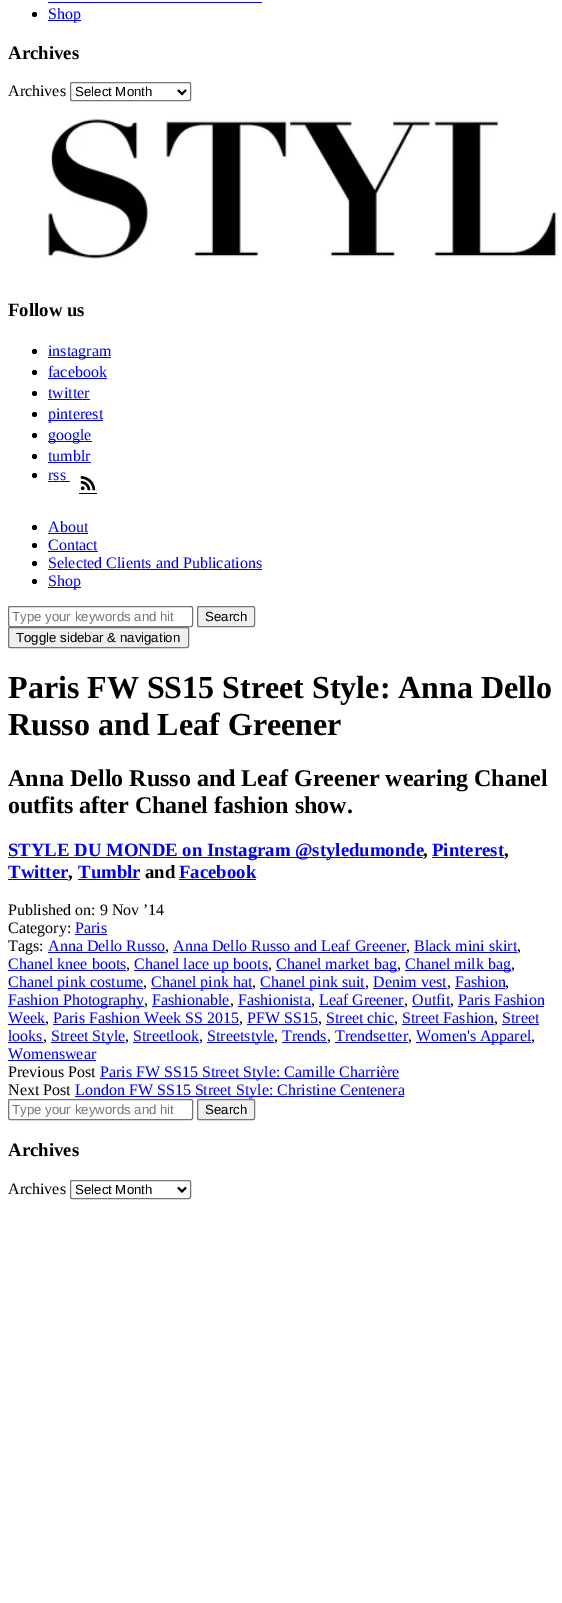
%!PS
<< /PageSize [562 1603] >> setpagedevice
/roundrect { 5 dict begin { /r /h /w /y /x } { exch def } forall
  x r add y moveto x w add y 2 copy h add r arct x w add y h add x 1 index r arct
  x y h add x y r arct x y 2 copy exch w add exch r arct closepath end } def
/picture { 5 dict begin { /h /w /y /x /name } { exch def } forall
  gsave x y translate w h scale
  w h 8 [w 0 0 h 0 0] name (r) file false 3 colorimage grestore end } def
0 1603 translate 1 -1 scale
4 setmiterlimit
1 setgray
0 0 562 1603 rectfill
0 0 0.933 setrgbcolor
48 2 214 1 rectfill
0 setgray
newpath 34.5 14.5 2.5 0 360 arc closepath fill
0 0 0.933 setrgbcolor
48 20 33 1 rectfill
/LiberationSerif-Regular [16 0 0 -16 0 0] selectfont
48 19 moveto (Shop) show
/LiberationSerif-Bold [18.75 0 0 -18.75 0 0] selectfont
0 setgray
8 59 moveto (Archives) show
/LiberationSerif-Regular [16 0 0 -16 0 0] selectfont
8 96 moveto (Archives) show
0.463 setgray
70.5 82.5 120 18 1.5 roundrect stroke
0 setgray
2 setlinewidth
newpath 178 90 moveto 182 94 lineto 186 90 lineto stroke
/LiberationSans-Regular [13.25 0 0 -13.25 0 0] selectfont
75 96 moveto (Select Month) show
(img1.rgb) 45 119 513 140 picture
/LiberationSerif-Bold [18.75 0 0 -18.75 0 0] selectfont
8 316 moveto (Follow us) show
newpath 34.5 351.5 2.5 0 360 arc closepath fill
0 0 0.933 setrgbcolor
48 357 63 1 rectfill
/LiberationSerif-Regular [16 0 0 -16 0 0] selectfont
48 356 moveto (instagram) show
0 setgray
newpath 34.5 372.5 2.5 0 360 arc closepath fill
0 0 0.933 setrgbcolor
48 377 moveto (facebook) show
48 378 59 1 rectfill
0 setgray
newpath 34.5 393.5 2.5 0 360 arc closepath fill
0 0 0.933 setrgbcolor
48 398 moveto (twitter) show
48 399 42 1 rectfill
0 setgray
newpath 34.5 414.5 2.5 0 360 arc closepath fill
0 0 0.933 setrgbcolor
48 420 55 1 rectfill
48 419 moveto (pinterest) show
0 setgray
newpath 34.5 435.5 2.5 0 360 arc closepath fill
0 0 0.933 setrgbcolor
48 441 44 1 rectfill
48 440 moveto (google) show
0 setgray
newpath 34.5 456.5 2.5 0 360 arc closepath fill
0 0 0.933 setrgbcolor
48 461 moveto (tumblr) show
48 462 43 1 rectfill
0 setgray
newpath 34.5 475.5 2.5 0 360 arc closepath fill
0 0 0.933 setrgbcolor
48 480 moveto (rss) show
48 481 22 1 rectfill
(img2.rgb) 80 476 16 15 picture
0 setgray
79 493 18 1 rectfill
newpath 34.5 527.5 2.5 0 360 arc closepath fill
0 0 0.933 setrgbcolor
48 532 moveto (About) show
48 533 40 1 rectfill
0 setgray
newpath 34.5 545.5 2.5 0 360 arc closepath fill
0 0 0.933 setrgbcolor
48 550 moveto (Contact) show
48 551 50 1 rectfill
0 setgray
newpath 34.5 563.5 2.5 0 360 arc closepath fill
0 0 0.933 setrgbcolor
48 568 moveto (Selected Clients and Publications) show
48 569 214 1 rectfill
0 setgray
newpath 34.5 581.5 2.5 0 360 arc closepath fill
0 0 0.933 setrgbcolor
48 587 33 1 rectfill
48 586 moveto (Shop) show
0.463 setgray
1 setlinewidth
8.5 606.5 184 20 1.5 roundrect stroke
/LiberationSans-Regular [13.25 0 0 -13.25 0 0] selectfont
0.459 setgray
12 621 moveto (Type your keywords and hit) show
0.937 setgray
197.5 606.5 57 20 1.5 roundrect gsave fill grestore
0.463 setgray
stroke
0 setgray
205 621 moveto (Search) show
0.937 setgray
8.5 627.5 180 20 1.5 roundrect gsave fill grestore
0.463 setgray
stroke
0 setgray
16 642 moveto (Toggle sidebar & navigation) show
/LiberationSerif-Bold [32 0 0 -32 0 0] selectfont
8 698 moveto (Paris FW SS15 Street Style: Anna Dello) show
8 735 moveto (Russo and Leaf Greener) show
/LiberationSerif-Bold [24 0 0 -24 0 0] selectfont
8 786 moveto (Anna Dello Russo and Leaf Greener wearing Chanel) show
8 813 moveto (outfits after Chanel fashion show.) show
0 0 0.933 setrgbcolor
8 857 415 1 rectfill
/LiberationSerif-Bold [18.75 0 0 -18.75 0 0] selectfont
8 856 moveto (STYLE DU MONDE on Instagram @styledumonde) show
0 setgray
423 856 moveto (,) show
0 0 0.933 setrgbcolor
432 856 moveto (Pinterest) show
432 857 72 1 rectfill
0 setgray
504 856 moveto (,) show
0 0 0.933 setrgbcolor
8 878 moveto (Twitter) show
8 879 60 1 rectfill
0 setgray
68 878 moveto (,) show
0 0 0.933 setrgbcolor
78 878 moveto (Tumblr) show
78 879 62 1 rectfill
0 setgray
145 878 moveto (and) show
0 0 0.933 setrgbcolor
179 878 moveto (Facebook) show
179 879 77 1 rectfill
/LiberationSerif-Regular [16 0 0 -16 0 0] selectfont
0 setgray
8 915 moveto (Published on: 9 Nov ’14) show
8 933 moveto (Category:) show
0 0 0.933 setrgbcolor
75 933 moveto (Paris) show
75 934 32 1 rectfill
0 setgray
8 951 moveto (Tags:) show
0 0 0.933 setrgbcolor
48 951 moveto (Anna Dello Russo) show
48 952 117 1 rectfill
0 setgray
165 951 moveto (,) show
0 0 0.933 setrgbcolor
173 951 moveto (Anna Dello Russo and Leaf Greener) show
173 952 233 1 rectfill
0 setgray
406 951 moveto (,) show
0 0 0.933 setrgbcolor
414 951 moveto (Black mini skirt) show
414 952 103 1 rectfill
0 setgray
517 951 moveto (,) show
0 0 0.933 setrgbcolor
8 969 moveto (Chanel knee boots) show
8 970 118 1 rectfill
0 setgray
126 969 moveto (,) show
0 0 0.933 setrgbcolor
134 970 134 1 rectfill
134 969 moveto (Chanel lace up boots) show
0 setgray
268 969 moveto (,) show
0 0 0.933 setrgbcolor
276 970 121 1 rectfill
276 969 moveto (Chanel market bag) show
0 setgray
397 969 moveto (,) show
0 0 0.933 setrgbcolor
405 970 106 1 rectfill
405 969 moveto (Chanel milk bag) show
0 setgray
511 969 moveto (,) show
0 0 0.933 setrgbcolor
8 988 135 1 rectfill
8 987 moveto (Chanel pink costume) show
0 setgray
143 987 moveto (,) show
0 0 0.933 setrgbcolor
151 988 101 1 rectfill
151 987 moveto (Chanel pink hat) show
0 setgray
252 987 moveto (,) show
0 0 0.933 setrgbcolor
260 988 105 1 rectfill
260 987 moveto (Chanel pink suit) show
0 setgray
365 987 moveto (,) show
0 0 0.933 setrgbcolor
373 987 moveto (Denim vest) show
373 988 74 1 rectfill
0 setgray
447 987 moveto (,) show
0 0 0.933 setrgbcolor
455 987 moveto (Fashion) show
455 988 50 1 rectfill
0 setgray
505 987 moveto (,) show
0 0 0.933 setrgbcolor
8 1006 136 1 rectfill
8 1005 moveto (Fashion Photography) show
0 setgray
144 1005 moveto (,) show
0 0 0.933 setrgbcolor
152 1005 moveto (Fashionable) show
152 1006 78 1 rectfill
0 setgray
230 1005 moveto (,) show
0 0 0.933 setrgbcolor
238 1005 moveto (Fashionista) show
238 1006 73 1 rectfill
0 setgray
311 1005 moveto (,) show
0 0 0.933 setrgbcolor
319 1005 moveto (Leaf Greener) show
319 1006 85 1 rectfill
0 setgray
404 1005 moveto (,) show
0 0 0.933 setrgbcolor
412 1005 moveto (Outfit) show
412 1006 38 1 rectfill
0 setgray
450 1005 moveto (,) show
0 0 0.933 setrgbcolor
458 1005 moveto (Paris Fashion) show
458 1006 86 1 rectfill
8 1023 moveto (Week) show
8 1024 37 1 rectfill
0 setgray
45 1023 moveto (,) show
0 0 0.933 setrgbcolor
53 1023 moveto (Paris Fashion Week SS 2015) show
53 1024 186 1 rectfill
0 setgray
239 1023 moveto (,) show
0 0 0.933 setrgbcolor
247 1023 moveto (PFW SS15) show
247 1024 71 1 rectfill
0 setgray
318 1023 moveto (,) show
0 0 0.933 setrgbcolor
326 1023 moveto (Street chic) show
326 1024 68 1 rectfill
0 setgray
394 1023 moveto (,) show
0 0 0.933 setrgbcolor
402 1023 moveto (Street Fashion) show
402 1024 92 1 rectfill
0 setgray
494 1023 moveto (,) show
0 0 0.933 setrgbcolor
502 1023 moveto (Street) show
502 1024 37 1 rectfill
8 1041 moveto (looks) show
8 1042 35 1 rectfill
0 setgray
43 1041 moveto (,) show
0 0 0.933 setrgbcolor
51 1042 74 1 rectfill
51 1041 moveto (Street Style) show
0 setgray
125 1041 moveto (,) show
0 0 0.933 setrgbcolor
133 1041 moveto (Streetlook) show
133 1042 66 1 rectfill
0 setgray
199 1041 moveto (,) show
0 0 0.933 setrgbcolor
207 1042 67 1 rectfill
207 1041 moveto (Streetstyle) show
0 setgray
274 1041 moveto (,) show
0 0 0.933 setrgbcolor
282 1041 moveto (Trends) show
282 1042 45 1 rectfill
0 setgray
327 1041 moveto (,) show
0 0 0.933 setrgbcolor
335 1041 moveto (Trendsetter) show
335 1042 73 1 rectfill
0 setgray
408 1041 moveto (,) show
0 0 0.933 setrgbcolor
416 1042 115 1 rectfill
416 1041 moveto (Women's Apparel) show
0 setgray
531 1041 moveto (,) show
0 0 0.933 setrgbcolor
8 1059 moveto (Womenswear) show
8 1060 88 1 rectfill
0 setgray
8 1077 moveto (Previous Post) show
0 0 0.933 setrgbcolor
100 1078 299 1 rectfill
100 1077 moveto (Paris FW SS15 Street Style: Camille Charrière) show
0 setgray
8 1095 moveto (Next Post) show
0 0 0.933 setrgbcolor
75 1096 329 1 rectfill
75 1095 moveto (London FW SS15 Street Style: Christine Centenera) show
0.463 setgray
8.5 1099.5 184 20 1.5 roundrect stroke
/LiberationSans-Regular [13.25 0 0 -13.25 0 0] selectfont
0.459 setgray
12 1114 moveto (Type your keywords and hit) show
0.937 setgray
197.5 1099.5 57 20 1.5 roundrect gsave fill grestore
0.463 setgray
stroke
0 setgray
205 1114 moveto (Search) show
/LiberationSerif-Bold [18.75 0 0 -18.75 0 0] selectfont
8 1156 moveto (Archives) show
/LiberationSerif-Regular [16 0 0 -16 0 0] selectfont
8 1194 moveto (Archives) show
0.463 setgray
70.5 1180.5 120 18 1.5 roundrect stroke
0 setgray
2 setlinewidth
newpath 178 1187.5 moveto 182 1191.5 lineto 186 1187.5 lineto stroke
/LiberationSans-Regular [13.25 0 0 -13.25 0 0] selectfont
75 1194 moveto (Select Month) show
showpage
